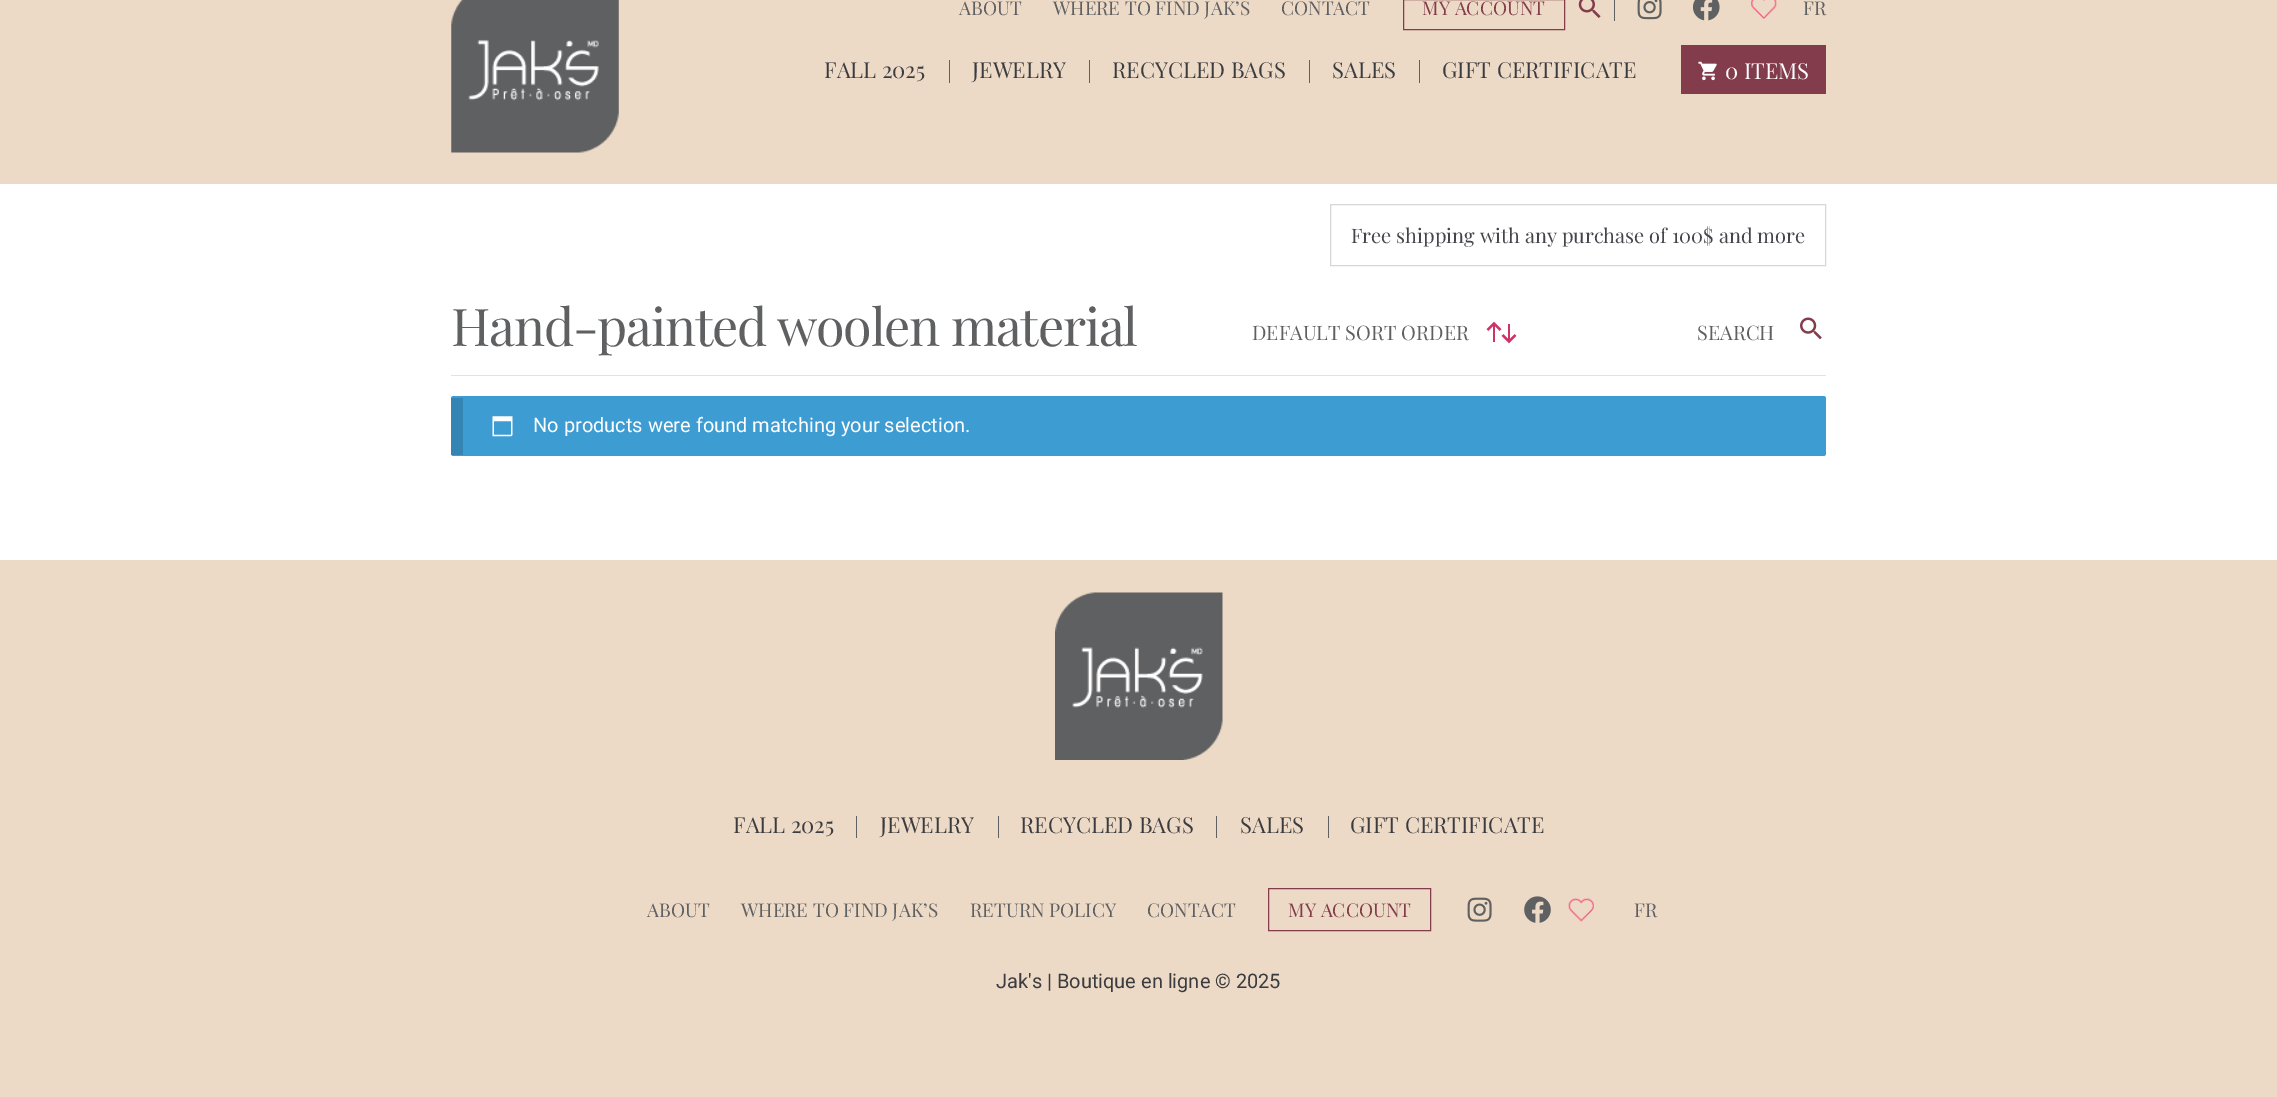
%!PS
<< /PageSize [2277 1097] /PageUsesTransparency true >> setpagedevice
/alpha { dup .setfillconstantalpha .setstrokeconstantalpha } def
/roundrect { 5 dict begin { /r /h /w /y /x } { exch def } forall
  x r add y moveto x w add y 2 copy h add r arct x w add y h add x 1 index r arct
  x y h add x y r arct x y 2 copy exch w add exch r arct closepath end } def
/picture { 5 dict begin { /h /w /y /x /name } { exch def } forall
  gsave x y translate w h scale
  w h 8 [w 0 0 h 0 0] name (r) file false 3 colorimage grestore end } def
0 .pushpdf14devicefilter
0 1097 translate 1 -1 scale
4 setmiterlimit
1 setgray
0 0 2277 1097 rectfill
0.925 0.855 0.776 setrgbcolor
0 0 2277 184 rectfill
(img1.rgb) 451 0 168 153 picture
/PlayfairDisplay-Regular [19 0 0 -19 0 0] selectfont
0.373 0.376 0.384 setrgbcolor
959 15 moveto (ABOUT) show
1053 15 moveto (WHERE TO FIND JAK’S) show
1281 15 moveto (CONTACT) show
0.514 0.235 0.294 setrgbcolor
1403.5 -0.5 161 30 rectstroke
1422 15 moveto (MY ACCOUNT) show
(img2.rgb) 1578 0 23 18 picture
0.373 0.376 0.384 setrgbcolor
1614 0 1 21 rectfill
(img3.rgb) 1637 0 25 20 picture
(img4.rgb) 1692 0 28 21 picture
(img5.rgb) 1751 0 26 19 picture
1803 15 moveto (FR) show
/PlayfairDisplay-Regular [22 0 0 -22 0 0] selectfont
0.231 0.235 0.247 setrgbcolor
824 78 moveto (FALL 2025) show
0.373 0.376 0.384 setrgbcolor
949 60 1 23 rectfill
0.231 0.235 0.247 setrgbcolor
972 78 moveto (JEWELRY) show
0.373 0.376 0.384 setrgbcolor
1089 60 1 23 rectfill
0.231 0.235 0.247 setrgbcolor
1112 78 moveto (RECYCLED BAGS) show
0.373 0.376 0.384 setrgbcolor
1309 60 1 23 rectfill
0.231 0.235 0.247 setrgbcolor
1332 78 moveto (SALES) show
0.373 0.376 0.384 setrgbcolor
1419 60 1 23 rectfill
0.231 0.235 0.247 setrgbcolor
1442 78 moveto (GIFT CERTIFICATE) show
0.514 0.235 0.294 setrgbcolor
1681 45 145 49 rectfill
(img6.rgb) 1698 61 19 20 picture
1 setgray
1725 79 moveto (0 ITEMS) show
0.843 setgray
1330.5 204.5 495 61 rectstroke
/PlayfairDisplay-Regular [20 0 0 -20 0 0] selectfont
0.263 0.271 0.294 setrgbcolor
1351 243 moveto (Free shipping with any purchase of 100$ and more) show
0.886 setgray
451 375 1375 1 rectfill
/PlayfairDisplay-Regular [52 0 0 -52 0 0] selectfont
0.373 0.376 0.384 setrgbcolor
451 346 moveto -1.25 0 (Hand-painted woolen material) ashow
0.812 0.196 0.404 setrgbcolor
2.2 setlinewidth
newpath 1515.5 335 moveto 1509 341.5 lineto 1502.5 335 lineto stroke
1508 324 2 17 rectfill
newpath 1487.5 330 moveto 1494 323.5 lineto 1500.5 330 lineto stroke
1493 324 2 18 rectfill
/PlayfairDisplay-Regular [20 0 0 -20 0 0] selectfont
0.373 0.376 0.384 setrgbcolor
1252 340 moveto (DEFAULT SORT ORDER) show
1697 340 moveto (SEARCH) show
(img7.rgb) 1800 317 22 23 picture
0.239 0.612 0.824 setrgbcolor
451 396 1375 60 2.5 roundrect fill
0.15 alpha
0 setgray
451 398 12 57 rectfill
1 alpha
(img8.rgb) 492 416 21 21 picture
/Roboto-Regular [20 0 0 -20 0 0] selectfont
1 setgray
533 432 moveto (No products were found matching your selection.) show
0.925 0.855 0.776 setrgbcolor
0 560 2277 537 rectfill
(img9.rgb) 1055 592 168 168 picture
/PlayfairDisplay-Regular [22 0 0 -22 0 0] selectfont
0.231 0.235 0.247 setrgbcolor
733 833 moveto (FALL 2025) show
0.373 0.376 0.384 setrgbcolor
856 816 1 22 rectfill
0.231 0.235 0.247 setrgbcolor
880 833 moveto (JEWELRY) show
0.373 0.376 0.384 setrgbcolor
998 816 1 22 rectfill
0.231 0.235 0.247 setrgbcolor
1020 833 moveto (RECYCLED BAGS) show
0.373 0.376 0.384 setrgbcolor
1216 816 1 22 rectfill
0.231 0.235 0.247 setrgbcolor
1240 833 moveto (SALES) show
0.373 0.376 0.384 setrgbcolor
1328 816 1 22 rectfill
0.231 0.235 0.247 setrgbcolor
1350 833 moveto (GIFT CERTIFICATE) show
/PlayfairDisplay-Regular [19 0 0 -19 0 0] selectfont
0.373 0.376 0.384 setrgbcolor
647 917 moveto (ABOUT) show
741 917 moveto (WHERE TO FIND JAK’S) show
970 917 moveto (RETURN POLICY) show
1147 917 moveto (CONTACT) show
0.514 0.235 0.294 setrgbcolor
1 setlinewidth
1268.5 888.5 162 42 rectstroke
1288 917 moveto (MY ACCOUNT) show
(img10.rgb) 1467 897 25 25 picture
(img11.rgb) 1524 896 27 27 picture
(img12.rgb) 1568 898 26 24 picture
0.373 0.376 0.384 setrgbcolor
1634 917 moveto (FR) show
/Roboto-Regular [20 0 0 -20 0 0] selectfont
0.231 0.235 0.247 setrgbcolor
996 988 moveto (Jak's | Boutique en ligne © 2025) show
.poppdf14devicefilter showpage
